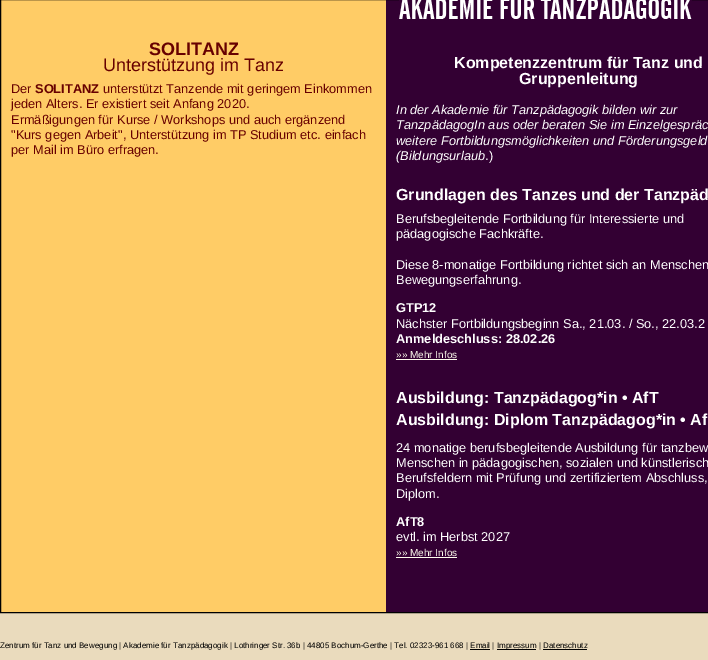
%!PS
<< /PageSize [708 660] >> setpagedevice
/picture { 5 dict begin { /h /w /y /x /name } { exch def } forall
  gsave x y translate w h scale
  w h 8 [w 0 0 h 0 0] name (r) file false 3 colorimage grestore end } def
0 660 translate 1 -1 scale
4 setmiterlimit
0.918 0.859 0.741 setrgbcolor
0 0 708 660 rectfill
(img1.rgb) 1 0 707 612 picture
0 setgray
0.5 -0.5 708 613 rectstroke
/LiberationSans-Bold [18 0 0 -18 0 0] selectfont
0.404 0 0 setrgbcolor
149 55 moveto (SOLITANZ) show
/LiberationSans-Regular [18 0 0 -18 0 0] selectfont
103 71 moveto (Unterstützung im Tanz) show
/LiberationSans-Regular [12.8 0 0 -12.8 0 0] selectfont
11 93 moveto (Der) show
/LiberationSans-Bold [12.8 0 0 -12.8 0 0] selectfont
35 93 moveto (SOLITANZ) show
/LiberationSans-Regular [12.8 0 0 -12.8 0 0] selectfont
103 93 moveto (unterstützt Tanzende mit geringem Einkommen) show
11 108 moveto (jeden Alters. Er existiert seit Anfang 2020.) show
11 124 moveto (Ermäßigungen für Kurse / Workshops und auch ergänzend) show
11 139 moveto ("Kurs gegen Arbeit", Unterstützung im TP Studium etc. einfach) show
11 154 moveto (per Mail im Büro erfragen.) show
(img2.rgb) 399 0 293 19 picture
/LiberationSans-Bold [16 0 0 -16 0 0] selectfont
1 setgray
454 68 moveto (Kompetenzzentrum für Tanz und) show
519 84 moveto (Gruppenleitung) show
/LiberationSans-Italic [12.8 0 0 -12.8 0 0] selectfont
396 114 moveto (In der Akademie für Tanzpädagogik bilden wir zur) show
396 129 moveto (TanzpädagogIn aus oder beraten Sie im Einzelgespräc) show
396 145 moveto (weitere Fortbildungsmöglichkeiten und Förderungsgeld) show
396 160 moveto (\(Bildungsurlaub) show
/LiberationSans-Regular [12.8 0 0 -12.8 0 0] selectfont
485 160 moveto (.\)) show
/LiberationSans-Bold [16 0 0 -16 0 0] selectfont
396 200 moveto (Grundlagen des Tanzes und der Tanzpäd) show
/LiberationSans-Regular [12.8 0 0 -12.8 0 0] selectfont
396 223 moveto (Berufsbegleitende Fortbildung für Interessierte und) show
396 238 moveto (pädagogische Fachkräfte.) show
396 269 moveto (Diese 8-monatige Fortbildung richtet sich an Menschen) show
396 284 moveto (Bewegungserfahrung.) show
/LiberationSans-Bold [12.8 0 0 -12.8 0 0] selectfont
396 312 moveto (GTP12) show
/LiberationSans-Regular [12.8 0 0 -12.8 0 0] selectfont
396 328 moveto (Nächster Fortbildungsbeginn Sa., 21.03. / So., 22.03.2) show
/LiberationSans-Bold [12.8 0 0 -12.8 0 0] selectfont
396 343 moveto (Anmeldeschluss: 28.02.26) show
/LiberationSans-Regular [10 0 0 -10 0 0] selectfont
1 0.996 0.933 setrgbcolor
396 358 moveto (»» Mehr Infos) show
396 359 61 1 rectfill
/LiberationSans-Bold [16 0 0 -16 0 0] selectfont
1 setgray
396 403 moveto (Ausbildung: Tanzpädagog*in • AfT) show
396 425 moveto (Ausbildung: Diplom Tanzpädagog*in • Af) show
/LiberationSans-Regular [12.8 0 0 -12.8 0 0] selectfont
396 452 moveto (24 monatige berufsbegleitende Ausbildung für tanzbew) show
396 467 moveto (Menschen in pädagogischen, sozialen und künstlerisch) show
396 482 moveto (Berufsfeldern mit Prüfung und zertifiziertem Abschluss,) show
396 498 moveto (Diplom.) show
/LiberationSans-Bold [12.8 0 0 -12.8 0 0] selectfont
396 526 moveto (AfT8) show
/LiberationSans-Regular [12.8 0 0 -12.8 0 0] selectfont
396 541 moveto (evtl. im Herbst 2027) show
/LiberationSans-Regular [10 0 0 -10 0 0] selectfont
1 0.996 0.933 setrgbcolor
396 556 moveto (»» Mehr Infos) show
396 557 61 1 rectfill
/LiberationSans-Regular [8 0 0 -8 0 0] selectfont
0 setgray
0 648 moveto (Zentrum für Tanz und Bewegung | Akademie für Tanzpädagogik | Lothringer Str. 36b | 44805 Bochum-Gerthe | Tel. 02323-961 668 | Email |) show
497 649 39 1 rectfill
497 648 moveto (Impressum | Datenschutz) show
470 649 20 1 rectfill
543 649 44 1 rectfill
showpage
